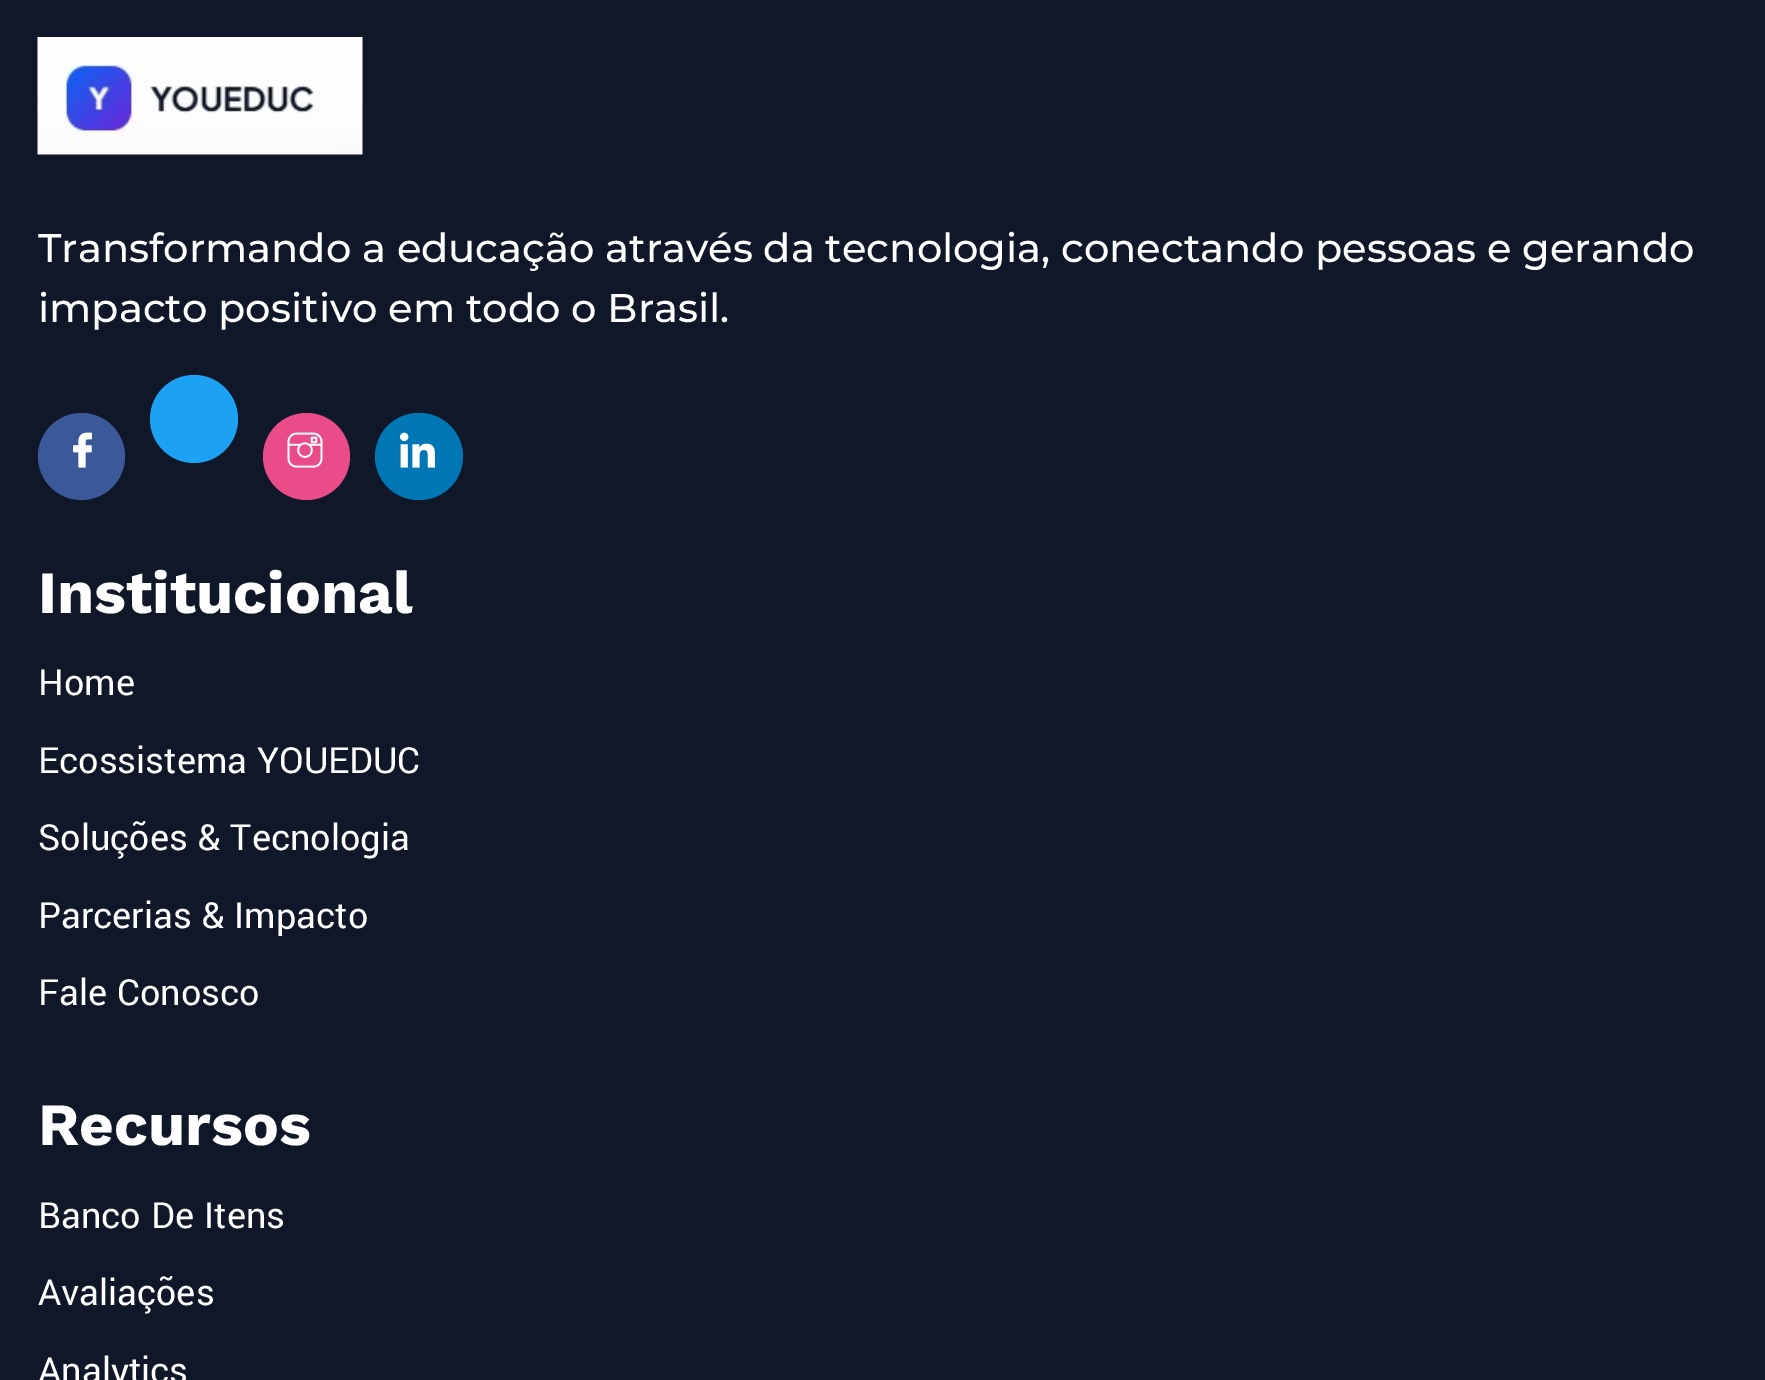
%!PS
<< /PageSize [1765 1380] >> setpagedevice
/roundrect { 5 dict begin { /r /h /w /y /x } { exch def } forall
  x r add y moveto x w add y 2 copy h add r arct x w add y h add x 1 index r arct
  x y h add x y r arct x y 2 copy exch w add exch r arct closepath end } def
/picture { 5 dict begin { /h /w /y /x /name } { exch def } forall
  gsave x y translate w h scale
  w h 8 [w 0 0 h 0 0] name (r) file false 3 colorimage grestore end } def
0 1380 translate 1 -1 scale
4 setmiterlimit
0.063 0.09 0.161 setrgbcolor
0 0 1765 1380 rectfill
(img1.rgb) 37 37 326 118 picture
/Montserrat-Medium [40 0 0 -40 0 0] selectfont
1 setgray
38 262 moveto (Transformando a educação através da tecnologia, conectando pessoas e gerando) show
38 322 moveto (impacto positivo em todo o Brasil.) show
0.231 0.349 0.596 setrgbcolor
newpath 81.5 456.5 43.5 0 360 arc closepath fill
(img2.rgb) 73 432 19 36 picture
0.114 0.631 0.949 setrgbcolor
newpath 194 419 44 0 360 arc closepath fill
0.918 0.298 0.537 setrgbcolor
newpath 306.5 456.5 43.5 0 360 arc closepath fill
(img3.rgb) 287 432 36 36 picture
0 0.467 0.71 setrgbcolor
375 413 88 87 43.5 roundrect fill
(img4.rgb) 400 432 35 36 picture
/WorkSans-Bold [60 0 0 -60 0 0] selectfont
1 setgray
38 613 moveto (Institucional) show
/Yantramanav-Regular [40 0 0 -40 0 0] selectfont
38 695 moveto (Home) show
38 773 moveto (Ecossistema YOUEDUC) show
38 850 moveto (Soluções & Tecnologia) show
38 928 moveto (Parcerias & Impacto) show
38 1005 moveto (Fale Conosco) show
/WorkSans-Bold [60 0 0 -60 0 0] selectfont
38 1145 moveto (Recursos) show
/Yantramanav-Regular [40 0 0 -40 0 0] selectfont
38 1228 moveto (Banco De Itens) show
38 1305 moveto (Avaliações) show
38 1383 moveto (Analytics) show
showpage
